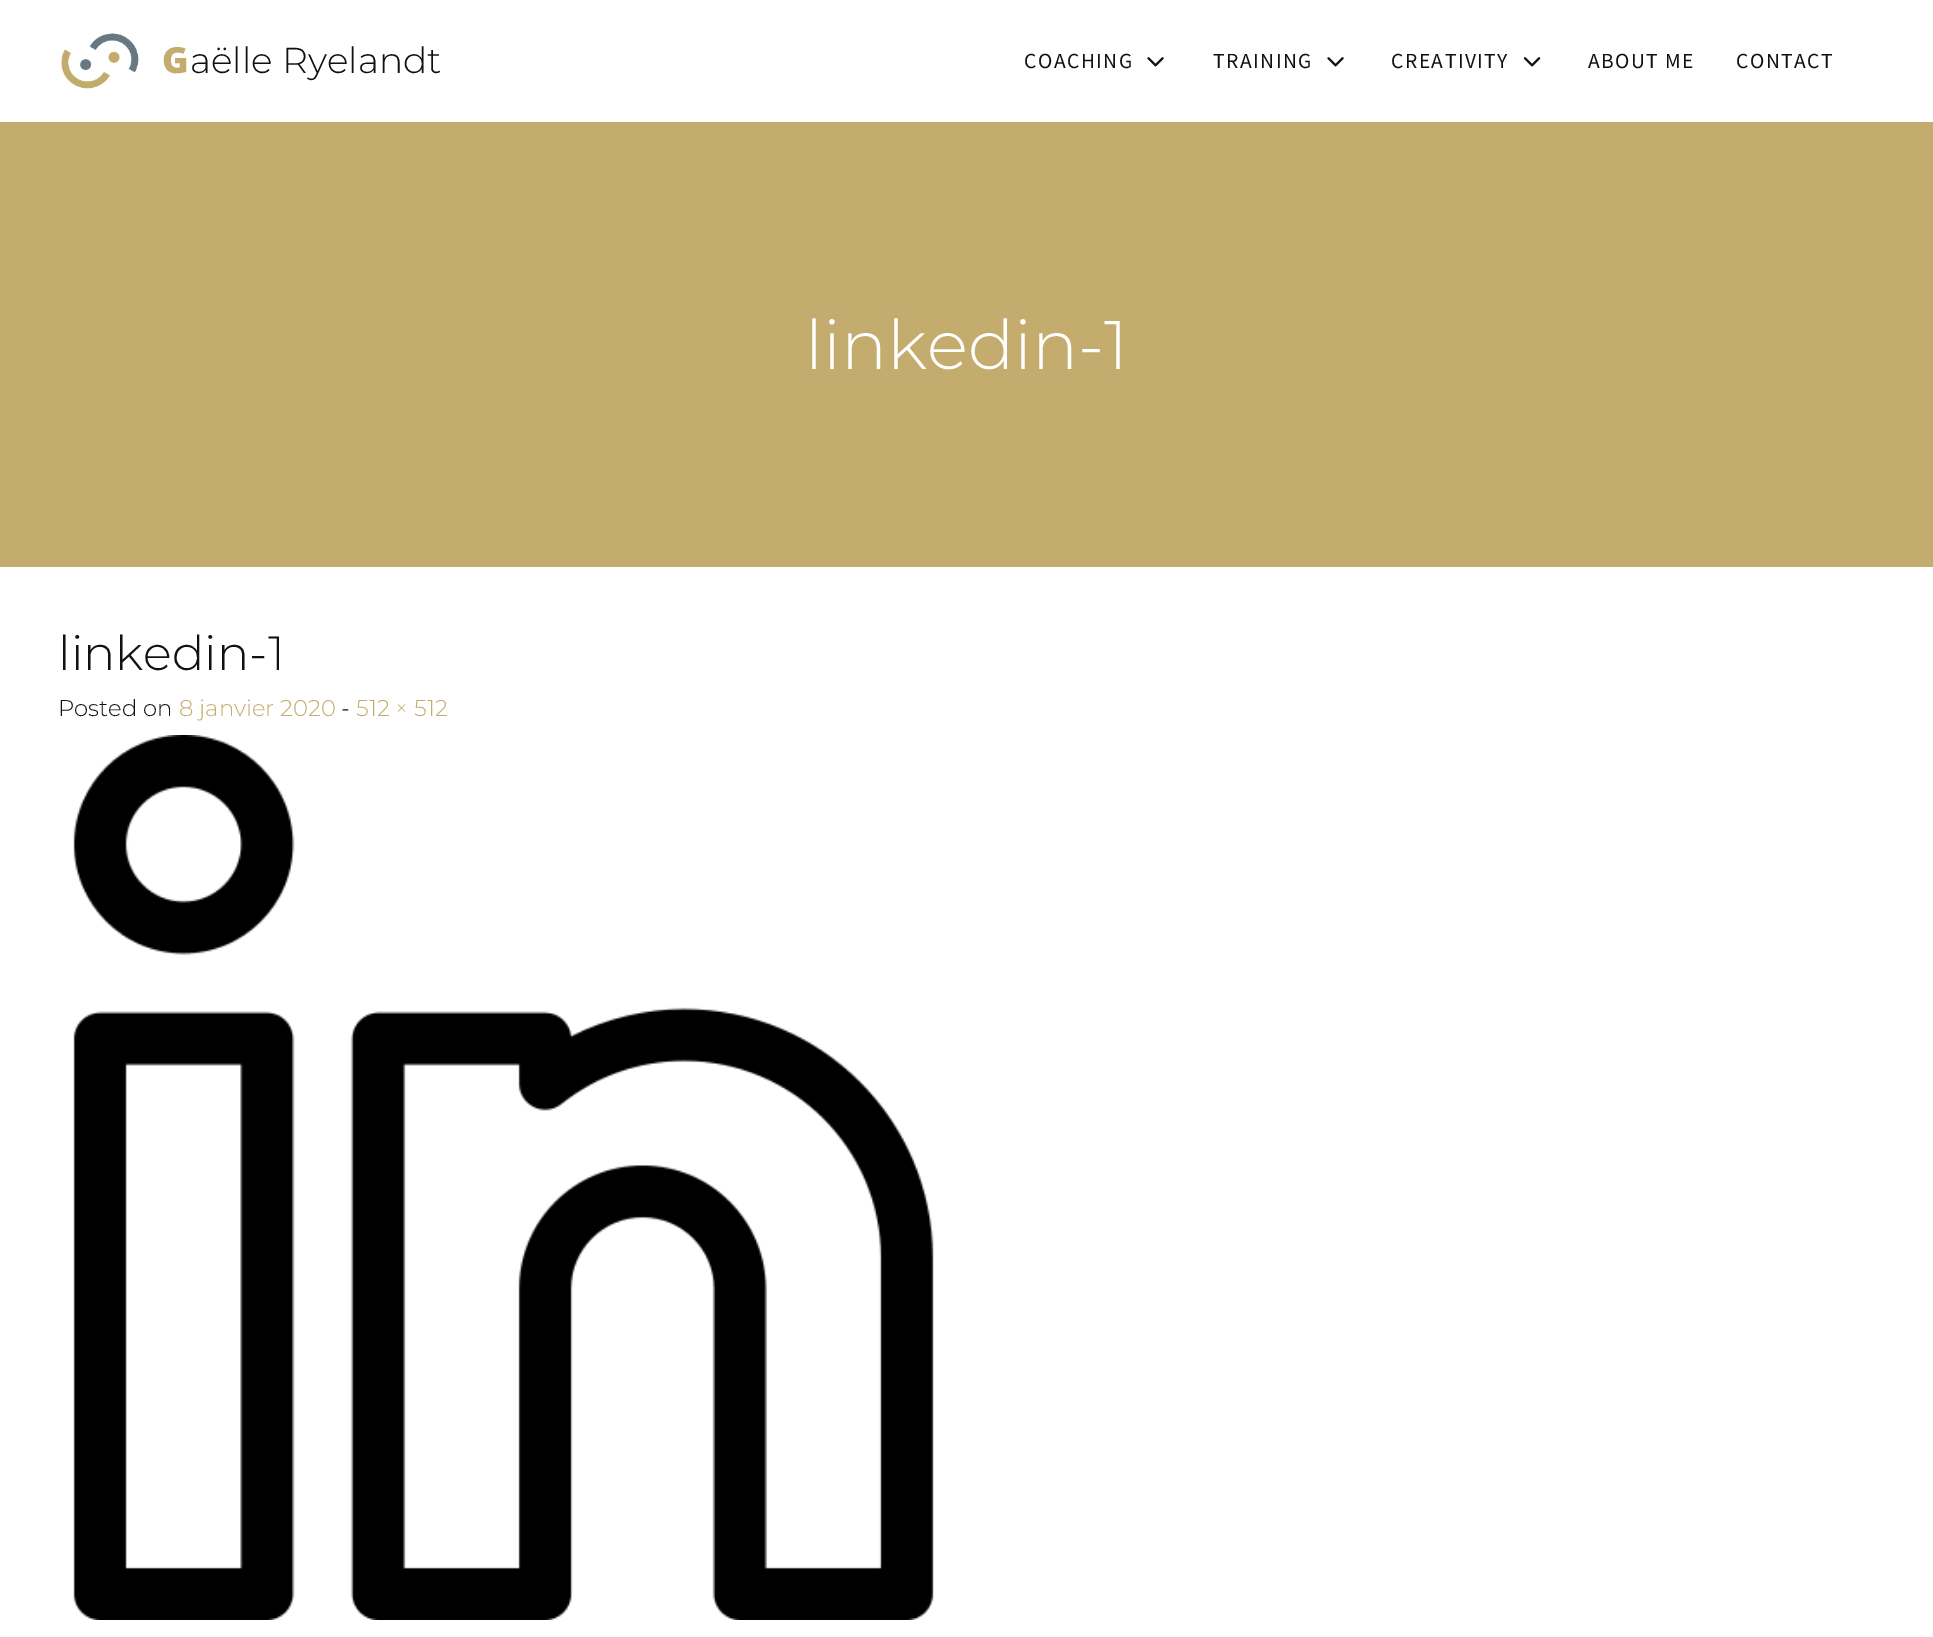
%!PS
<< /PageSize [1933 1637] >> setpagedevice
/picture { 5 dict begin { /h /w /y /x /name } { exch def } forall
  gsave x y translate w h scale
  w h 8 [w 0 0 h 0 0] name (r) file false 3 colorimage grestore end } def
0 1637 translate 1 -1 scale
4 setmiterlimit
1 setgray
0 0 1933 1637 rectfill
(img1.rgb) 61 33 78 56 picture
/NotoSans-Black [36 0 0 -36 0 0] selectfont
0.765 0.675 0.427 setrgbcolor
162 73 moveto (G) show
/Montserrat-Light [36 0 0 -36 0 0] selectfont
0.067 setgray
190 73 moveto (aëlle Ryelandt) show
/SourceSansPro-Regular [21.5 0 0 -21.5 0 0] selectfont
1024 68 moveto 1.5 0 (COACHING) ashow
(img2.rgb) 1147 57 17 10 picture
1213 68 moveto 1.5 0 (TRAINING) ashow
(img2.rgb) 1327 57 17 10 picture
1391 68 moveto 1.5 0 (CREATIVITY) ashow
(img3.rgb) 1523 57 18 10 picture
1588 68 moveto 1.5 0 (ABOUT ME) ashow
1736 68 moveto 1.5 0 (CONTACT) ashow
0.765 0.675 0.427 setrgbcolor
0 122 1933 445 rectfill
/Montserrat-Light [68.5 0 0 -68.5 0 0] selectfont
1 setgray
805 369 moveto (linkedin-1) show
/Montserrat-Light [48 0 0 -48 0 0] selectfont
0.067 setgray
58 670 moveto (linkedin-1) show
/Montserrat-Light [22.75 0 0 -22.75 0 0] selectfont
58 716 moveto (Posted on) show
0.765 0.675 0.427 setrgbcolor
179 716 moveto (8 janvier 2020) show
0.067 setgray
341 716 moveto (-) show
0.765 0.675 0.427 setrgbcolor
356 716 moveto (512 × 512) show
(img4.rgb) 73 735 861 885 picture
showpage
